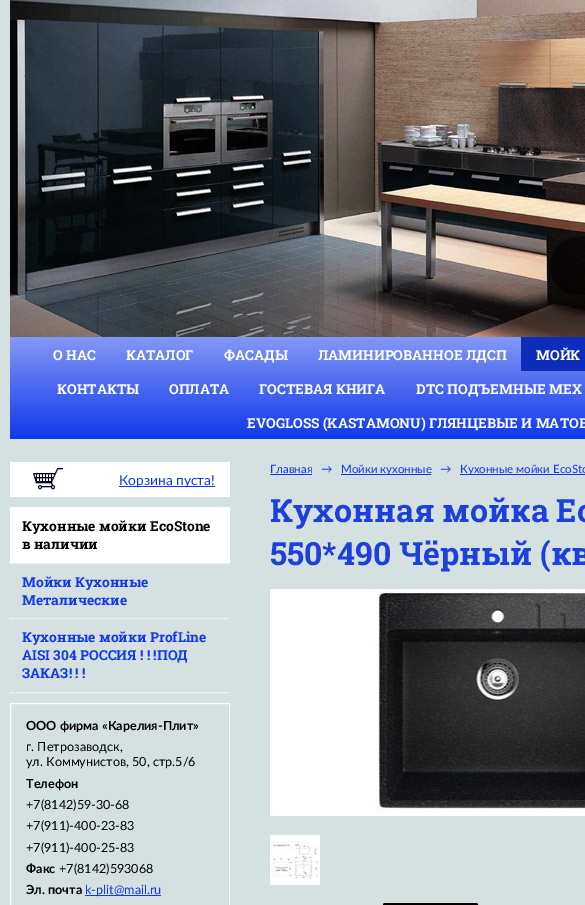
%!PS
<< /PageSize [585 905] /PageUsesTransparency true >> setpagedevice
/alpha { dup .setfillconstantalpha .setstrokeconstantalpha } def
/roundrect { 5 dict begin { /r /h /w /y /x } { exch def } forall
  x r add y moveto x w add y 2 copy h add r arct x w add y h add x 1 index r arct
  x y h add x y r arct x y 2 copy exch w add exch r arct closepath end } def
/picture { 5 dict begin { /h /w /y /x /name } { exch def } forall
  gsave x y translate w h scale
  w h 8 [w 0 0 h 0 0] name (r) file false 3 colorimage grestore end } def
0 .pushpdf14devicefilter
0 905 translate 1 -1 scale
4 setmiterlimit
0.835 0.882 0.882 setrgbcolor
0 0 585 905 rectfill
(img1.rgb) 10 0 575 337 picture
0.5 alpha
0 setgray
550 237 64 58 29 roundrect fill
1 alpha
gsave newpath 10 337 moveto 585 337 lineto 585 439 lineto 10 439 lineto closepath clip newpath
<< /ShadingType 2 /ColorSpace /DeviceRGB /Coords [480 337 480 439] /Extend [true true] /Function << /FunctionType 2 /Domain [0 1] /C0 [0.514 0.596 0.965] /C1 [0.063 0.22 0.918] /N 1 >> >> shfill grestore
/RobotoSlab-Bold [13.75 0 0 -13.75 0 0] selectfont
1 setgray
53 360 moveto (О НАС) show
126 360 moveto (КАТАЛОГ) show
224 360 moveto (ФАСАДЫ) show
318 360 moveto (ЛАМИНИРОВАННОЕ ЛДСП) show
0.051 0.176 0.729 setrgbcolor
521 337 64 34 rectfill
1 setgray
536 360 moveto (МОЙК) show
57 394 moveto (КОНТАКТЫ) show
169 394 moveto (ОПЛАТА) show
259 394 moveto (ГОСТЕВАЯ КНИГА) show
416 394 moveto (DTC ПОДЪЕМНЫЕ МЕХ) show
247 428 moveto (EVOGLOSS \(KASTAMONU\) ГЛЯНЦЕВЫЕ И МАТОВ) show
10 462 220 35 rectfill
(img2.rgb) 33 468 30 22 picture
0.063 0.22 0.918 setrgbcolor
119 486 96 1 rectfill
/Lato-Regular [13.75 0 0 -13.75 0 0] selectfont
119 485 moveto (Корзина пуста!) show
1 setgray
[1 1] 0 setdash
newpath 10 692.5 moveto 230 692.5 lineto stroke
10 507 220 56 rectfill
/RobotoSlab-Bold [13.75 0 0 -13.75 0 0] selectfont
0 setgray
22 531 moveto (Кухонные мойки EcoStone) show
22 549 moveto (в наличии) show
1 setgray
newpath 10 563.5 moveto 230 563.5 lineto stroke
0.063 0.22 0.918 setrgbcolor
22 587 moveto (Мойки Кухонные) show
22 605 moveto (Металические) show
1 setgray
newpath 10 618.5 moveto 230 618.5 lineto stroke
0.063 0.22 0.918 setrgbcolor
22 642 moveto (Кухонные мойки ProfLine) show
22 660 moveto (AISI 304 РОССИЯ ! ! !ПОД) show
22 678 moveto (ЗАКАЗ! ! !) show
0.988 setgray
[] 0 setdash
10.5 703.5 219 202 rectstroke
/Lato-Bold [12.6 0 0 -12.6 0 0] selectfont
0 setgray
26 730 moveto (ООО фирма «Карелия-Плит») show
/Lato-Regular [12.6 0 0 -12.6 0 0] selectfont
26 751 moveto (г. Петрозаводск,) show
26 766 moveto (ул. Коммунистов, 50, стр.5/6) show
/Lato-Bold [12.6 0 0 -12.6 0 0] selectfont
26 788 moveto (Телефон) show
/Lato-Regular [12.6 0 0 -12.6 0 0] selectfont
26 809 moveto (+7\(8142\)59-30-68) show
26 830 moveto (+7\(911\)-400-23-83) show
26 852 moveto (+7\(911\)-400-25-83) show
/Lato-Bold [12.6 0 0 -12.6 0 0] selectfont
26 873 moveto (Факс) show
/Lato-Regular [12.6 0 0 -12.6 0 0] selectfont
59 873 moveto (+7\(8142\)593068) show
/Lato-Bold [12.6 0 0 -12.6 0 0] selectfont
26 894 moveto (Эл. почта) show
0.063 0.22 0.918 setrgbcolor
85 895 76 1 rectfill
/Lato-Regular [12.6 0 0 -12.6 0 0] selectfont
85 894 moveto (k-plit@mail.ru) show
/Lato-Regular [11.5 0 0 -11.5 0 0] selectfont
270 473 moveto (Главная) show
270 474 42 1 rectfill
/Lato-Italic [11.5 0 0 -11.5 0 0] selectfont
321 473 moveto (→) show
341 474 90 1 rectfill
/Lato-Regular [11.5 0 0 -11.5 0 0] selectfont
341 473 moveto (Мойки кухонные) show
/Lato-Italic [11.5 0 0 -11.5 0 0] selectfont
440 473 moveto (→) show
460 474 125 1 rectfill
/Lato-Regular [11.5 0 0 -11.5 0 0] selectfont
460 473 moveto (Кухонные мойки EcoSto) show
/RobotoSlab-Bold [32 0 0 -32 0 0] selectfont
0.114 0.251 0.867 setrgbcolor
270 522 moveto (Кухонная мойка Ec) show
270 565 moveto (550*490 Чёрный \(кв) show
(img3.rgb) 270 589 315 227 picture
(img4.rgb) 270 835 50 50 picture
0 setgray
383.5 903.5 94 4 1.5 roundrect gsave fill grestore
stroke
.poppdf14devicefilter showpage
